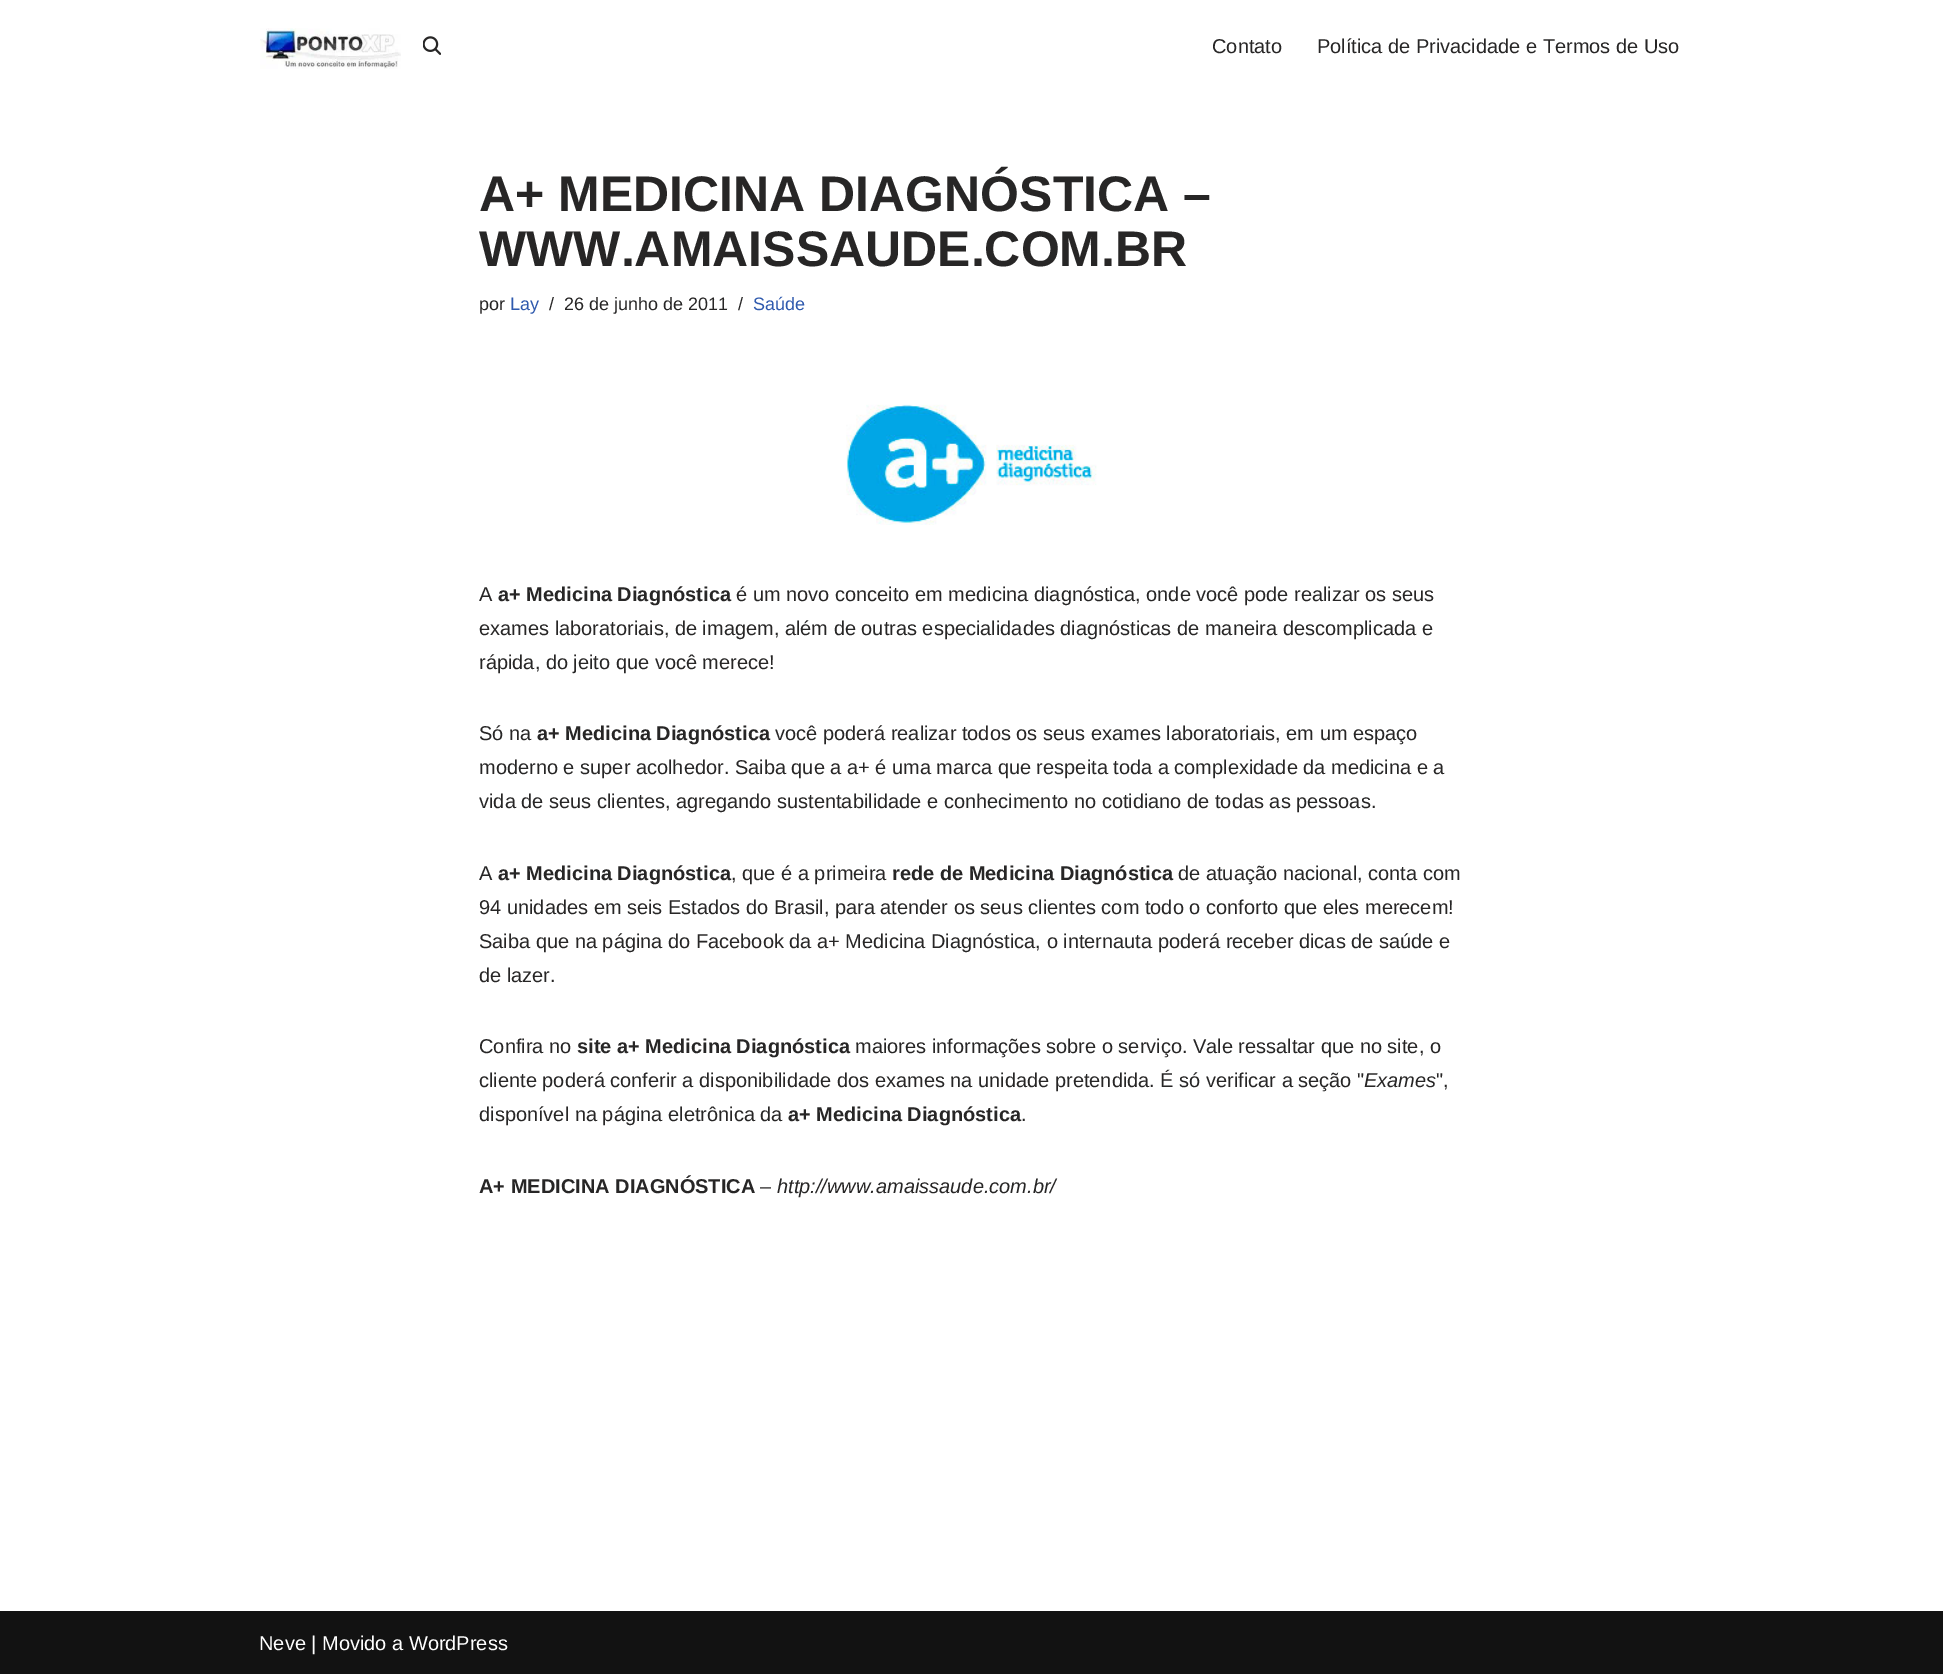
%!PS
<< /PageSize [1943 1674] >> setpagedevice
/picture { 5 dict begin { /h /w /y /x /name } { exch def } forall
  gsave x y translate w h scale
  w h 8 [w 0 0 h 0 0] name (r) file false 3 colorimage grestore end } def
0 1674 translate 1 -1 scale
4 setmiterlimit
1 setgray
0 0 1943 1674 rectfill
(img1.rgb) 260 28 141 41 picture
(img2.rgb) 423 36 18 19 picture
/LiberationSans-Regular [20 0 0 -20 0 0] selectfont
0.153 0.149 0.149 setrgbcolor
1212 53 moveto (Contato) show
1317 53 moveto (Política de Privacidade e Termos de Uso) show
/LiberationSans-Bold [50 0 0 -50 0 0] selectfont
479 211 moveto (A+ MEDICINA DIAGNÓSTICA –) show
479 266 moveto (WWW.AMAISSAUDE.COM.BR) show
/LiberationSans-Regular [18 0 0 -18 0 0] selectfont
479 310 moveto (por) show
0.184 0.353 0.682 setrgbcolor
510 310 moveto (Lay) show
0.153 0.149 0.149 setrgbcolor
549 310 moveto (/) show
564 310 moveto (26 de junho de 2011) show
738 310 moveto (/) show
0.184 0.353 0.682 setrgbcolor
753 310 moveto (Saúde) show
(img3.rgb) 846 404 251 121 picture
/LiberationSans-Regular [20 0 0 -20 0 0] selectfont
0.153 0.149 0.149 setrgbcolor
479 601 moveto (A) show
/LiberationSans-Bold [20 0 0 -20 0 0] selectfont
498 601 moveto (a+ Medicina Diagnóstica) show
/LiberationSans-Regular [20 0 0 -20 0 0] selectfont
736 601 moveto (é um novo conceito em medicina diagnóstica, onde você pode realizar os seus) show
479 635 moveto (exames laboratoriais, de imagem, além de outras especialidades diagnósticas de maneira descomplicada e) show
479 669 moveto (rápida, do jeito que você merece!) show
479 740 moveto (Só na) show
/LiberationSans-Bold [20 0 0 -20 0 0] selectfont
537 740 moveto (a+ Medicina Diagnóstica) show
/LiberationSans-Regular [20 0 0 -20 0 0] selectfont
775 740 moveto (você poderá realizar todos os seus exames laboratoriais, em um espaço) show
479 774 moveto (moderno e super acolhedor. Saiba que a a+ é uma marca que respeita toda a complexidade da medicina e a) show
479 808 moveto (vida de seus clientes, agregando sustentabilidade e conhecimento no cotidiano de todas as pessoas.) show
479 880 moveto (A) show
/LiberationSans-Bold [20 0 0 -20 0 0] selectfont
498 880 moveto (a+ Medicina Diagnóstica) show
/LiberationSans-Regular [20 0 0 -20 0 0] selectfont
731 880 moveto (, que é a primeira) show
/LiberationSans-Bold [20 0 0 -20 0 0] selectfont
892 880 moveto (rede de Medicina Diagnóstica) show
/LiberationSans-Regular [20 0 0 -20 0 0] selectfont
1178 880 moveto (de atuação nacional, conta com) show
479 914 moveto (94 unidades em seis Estados do Brasil, para atender os seus clientes com todo o conforto que eles merecem!) show
479 948 moveto (Saiba que na página do Facebook da a+ Medicina Diagnóstica, o internauta poderá receber dicas de saúde e) show
479 982 moveto (de lazer.) show
479 1053 moveto (Confira no) show
/LiberationSans-Bold [20 0 0 -20 0 0] selectfont
577 1053 moveto (site a+ Medicina Diagnóstica) show
/LiberationSans-Regular [20 0 0 -20 0 0] selectfont
855 1053 moveto (maiores informações sobre o serviço. Vale ressaltar que no site, o) show
479 1087 moveto (cliente poderá conferir a disponibilidade dos exames na unidade pretendida. É só verificar a seção ") show
/LiberationSans-Italic [20 0 0 -20 0 0] selectfont
1364 1087 moveto (Exames) show
/LiberationSans-Regular [20 0 0 -20 0 0] selectfont
1436 1087 moveto (",) show
479 1121 moveto (disponível na página eletrônica da) show
/LiberationSans-Bold [20 0 0 -20 0 0] selectfont
788 1121 moveto (a+ Medicina Diagnóstica) show
/LiberationSans-Regular [20 0 0 -20 0 0] selectfont
1021 1121 moveto (.) show
/LiberationSans-Bold [20 0 0 -20 0 0] selectfont
479 1193 moveto (A+ MEDICINA DIAGNÓSTICA) show
/LiberationSans-Regular [20 0 0 -20 0 0] selectfont
760 1193 moveto (–) show
/LiberationSans-Italic [20 0 0 -20 0 0] selectfont
777 1193 moveto (http://www.amaissaude.com.br/) show
0.071 setgray
0 1611 1943 63 rectfill
/LiberationSans-Regular [20 0 0 -20 0 0] selectfont
1 setgray
259 1650 moveto (Neve | Movido a WordPress) show
showpage
